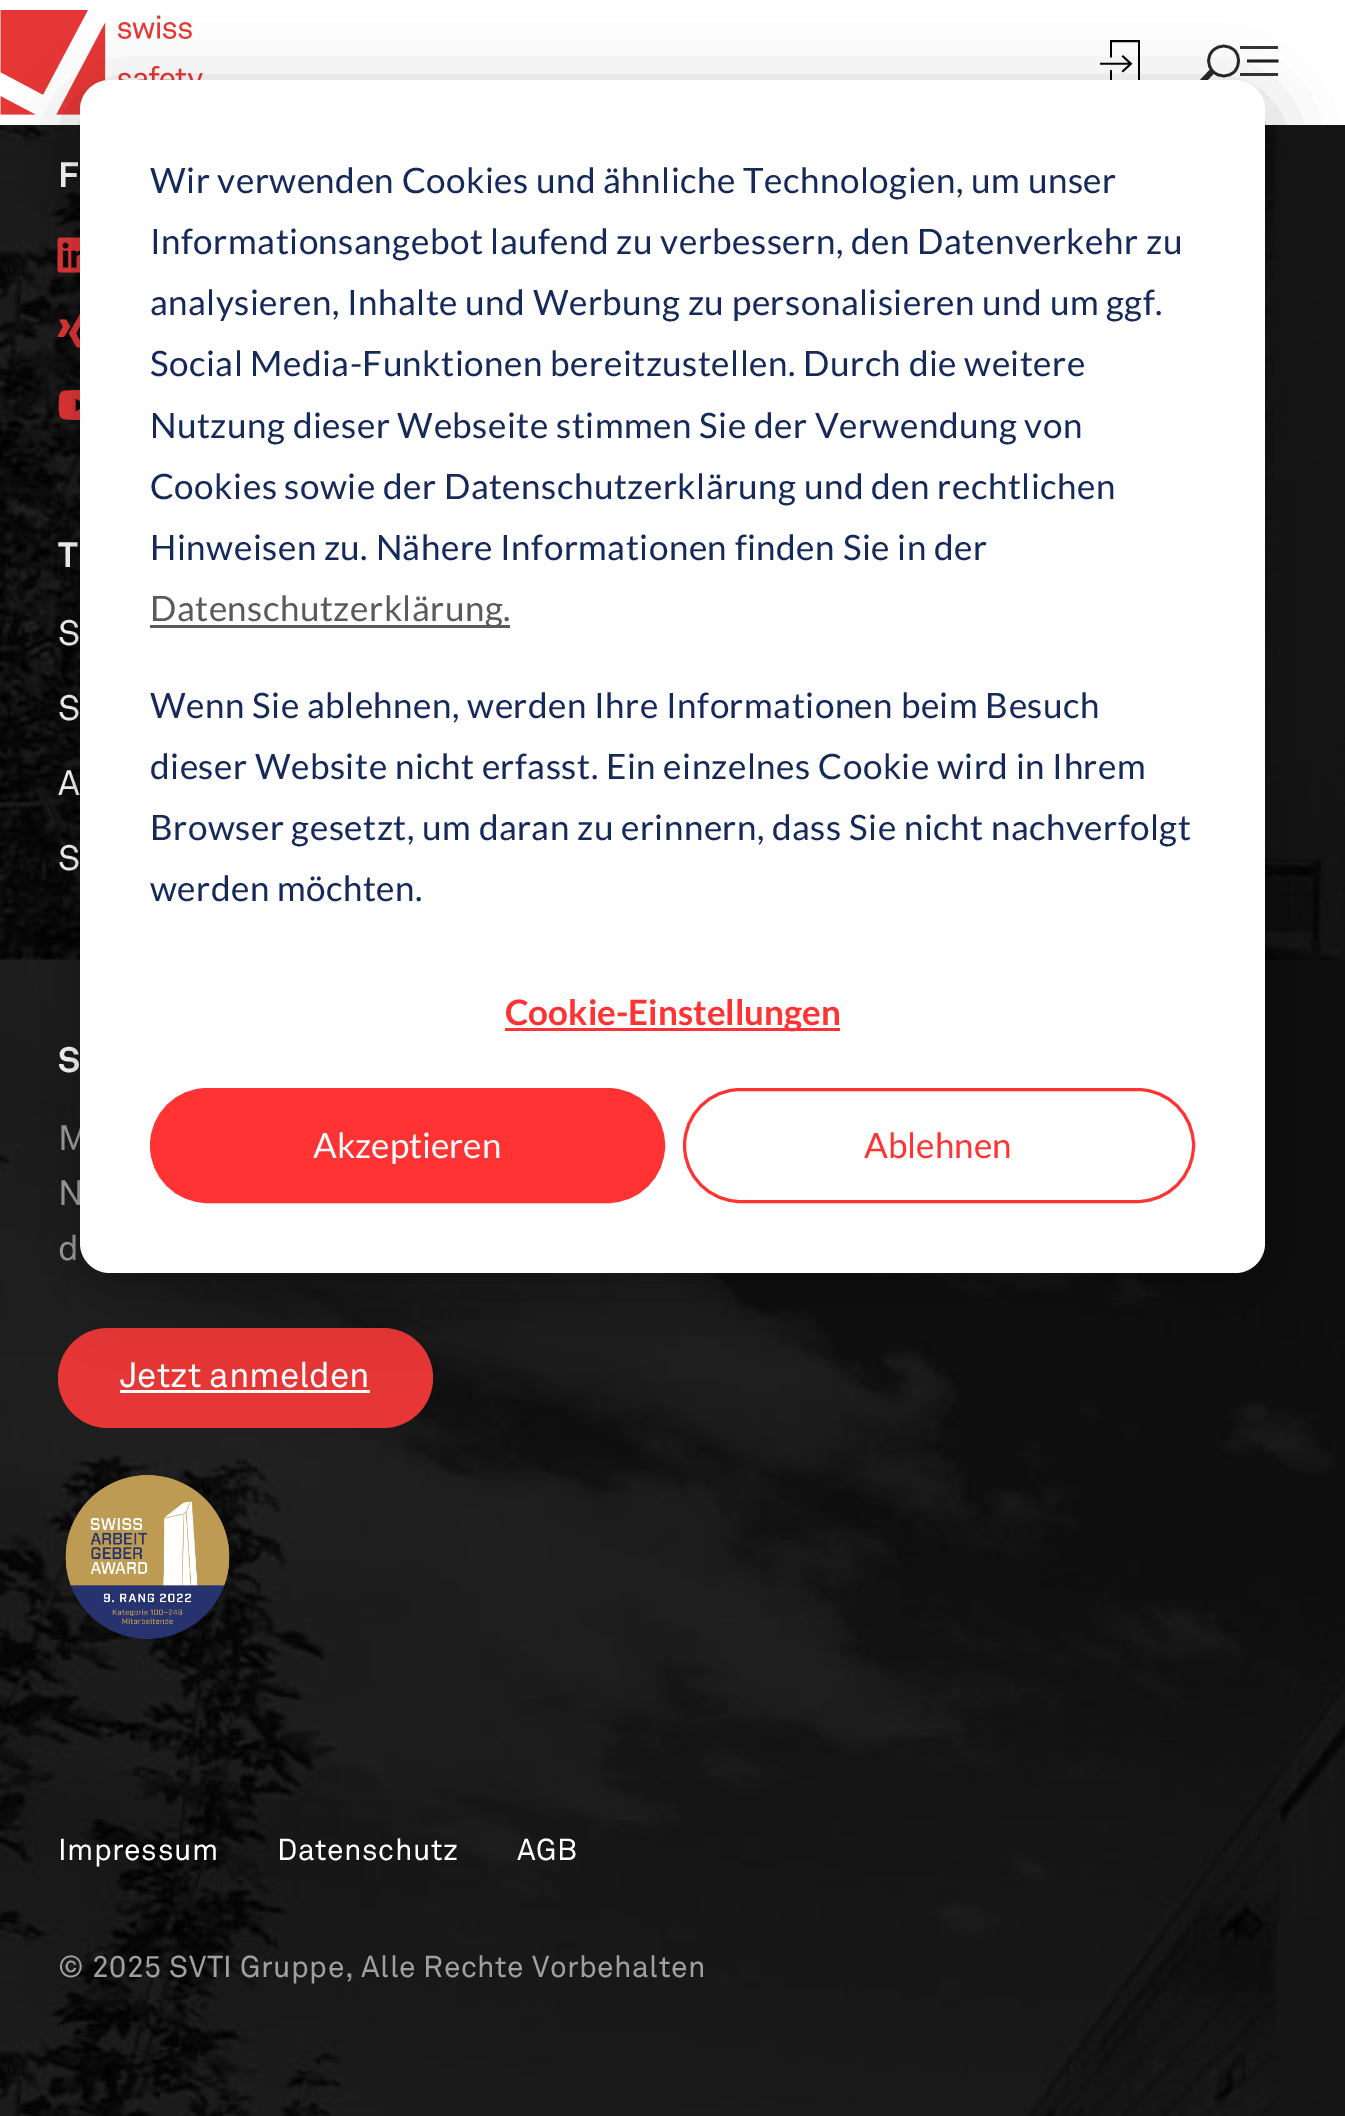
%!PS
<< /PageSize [1345 2116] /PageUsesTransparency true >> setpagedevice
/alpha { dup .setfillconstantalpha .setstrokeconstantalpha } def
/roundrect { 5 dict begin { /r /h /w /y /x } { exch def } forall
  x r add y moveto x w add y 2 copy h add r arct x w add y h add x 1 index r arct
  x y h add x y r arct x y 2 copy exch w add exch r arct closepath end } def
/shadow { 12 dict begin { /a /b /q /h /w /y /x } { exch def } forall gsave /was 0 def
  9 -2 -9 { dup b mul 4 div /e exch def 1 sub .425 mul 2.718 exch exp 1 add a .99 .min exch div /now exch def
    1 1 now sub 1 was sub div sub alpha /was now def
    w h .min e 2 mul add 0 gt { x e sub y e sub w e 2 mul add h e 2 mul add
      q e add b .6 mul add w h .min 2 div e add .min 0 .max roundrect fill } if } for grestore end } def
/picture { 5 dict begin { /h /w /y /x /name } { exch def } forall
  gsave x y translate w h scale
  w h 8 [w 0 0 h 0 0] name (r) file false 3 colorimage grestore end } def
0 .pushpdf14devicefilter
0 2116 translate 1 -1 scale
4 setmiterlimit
1 setgray
0 0 1345 2116 rectfill
(img1.rgb) 0 10 203 105 picture
(img2.rgb) 1100 40 40 40 picture
0.157 setgray
2.7 setlinewidth
newpath 1234.5 50.5 moveto 1228.5 44.5 1219 44.5 1213 50.5 curveto 1207 56 1207 65.5 1213 71.5 curveto 1219 77.5 1228.5 77.5 1234.5 71.5 curveto 1240 65.5 1240 56 1234.5 50.5 curveto closepath stroke
5.5 setlinewidth
2 setlinecap
newpath 1211 72.5 moveto 1200.5 83.5 lineto stroke
0.208 setgray
1240 46 38 3 rectfill
0.118 setgray
2.7 setlinewidth
newpath 1248.5 61 moveto 1277 61 lineto stroke
0.208 setgray
1240 73 38 3 rectfill
(img3.rgb) 0 125 1345 1991 picture
/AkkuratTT-Bold [35 0 0 -35 0 0] selectfont
1 setgray
58 187 moveto (F) show
(img4.rgb) 57 237 23 36 picture
(img5.rgb) 57 314 23 34 picture
(img6.rgb) 58 390 22 30 picture
58 567 moveto (T) show
/AkkuratTT-Regular [35 0 0 -35 0 0] selectfont
58 645 moveto (S) show
58 720 moveto (S) show
58 795 moveto (A) show
58 870 moveto (S) show
/AkkuratTT-Bold [35 0 0 -35 0 0] selectfont
58 1072 moveto (S) show
/AkkuratTT-Regular [35 0 0 -35 0 0] selectfont
0.627 setgray
58 1150 moveto 0.5 0 (M) ashow
58 1205 moveto 0.5 0 (N) ashow
58 1260 moveto 0.5 0 (d) ashow
0.906 0.212 0.212 setrgbcolor
58 1328 375 100 50 roundrect fill
1 setgray
120 1387 moveto (Jetzt anmelden) show
120 1390 250 3 rectfill
(img7.rgb) 65 1474 165 165 picture
/AkkuratTT-Regular [30 0 0 -30 0 0] selectfont
58 1860 moveto 0.5 0 (Impressum) ashow
277 1860 moveto 0.5 0 (Datenschutz) ashow
517 1860 moveto 0.5 0 (AGB) ashow
0.627 setgray
58 1977 moveto 0.5 0 (© 2025 SVTI Gruppe, Alle Rechte Vorbehalten) ashow
0 setgray
80 100 1185 1193 30 35 0.28 shadow
1 setgray
80 80 1185 1193 30 roundrect fill
/Lato-Regular [35 0 0 -35 0 0] selectfont
0.082 0.161 0.353 setrgbcolor
150 193 moveto 0.5 0 (Wir verwenden Cookies und ähnliche Technologien, um unser) ashow
150 254 moveto 0.5 0 (Informationsangebot laufend zu verbessern, den Datenverkehr zu) ashow
150 315 moveto 0.5 0 (analysieren, Inhalte und Werbung zu personalisieren und um ggf.) ashow
150 376 moveto 0.5 0 (Social Media-Funktionen bereitzustellen. Durch die weitere) ashow
150 438 moveto 0.5 0 (Nutzung dieser Webseite stimmen Sie der Verwendung von) ashow
150 499 moveto 0.5 0 (Cookies sowie der Datenschutzerklärung und den rechtlichen) ashow
150 560 moveto 0.5 0 (Hinweisen zu. Nähere Informationen finden Sie in der) ashow
0.353 setgray
150 625 360 3 rectfill
150 621 moveto 0.5 0 (Datenschutzerklärung.) ashow
0.082 0.161 0.353 setrgbcolor
150 718 moveto 0.5 0 (Wenn Sie ablehnen, werden Ihre Informationen beim Besuch) ashow
150 779 moveto 0.5 0 (dieser Website nicht erfasst. Ein einzelnes Cookie wird in Ihrem) ashow
150 840 moveto 0.5 0 (Browser gesetzt, um daran zu erinnern, dass Sie nicht nachverfolgt) ashow
150 901 moveto 0.5 0 (werden möchten.) ashow
1 0.2 0.2 setrgbcolor
505 1028 335 3 rectfill
/Lato-Bold [35 0 0 -35 0 0] selectfont
505 1025 moveto (Cookie-Einstellungen) show
151.5 1089.5 512 112 56 roundrect gsave fill grestore
3 setlinewidth
0 setlinecap
stroke
/Lato-Regular [35 0 0 -35 0 0] selectfont
1 setgray
313 1158 moveto (Akzeptieren) show
1 0.2 0.2 setrgbcolor
684.5 1089.5 509 112 56 roundrect stroke
864 1158 moveto (Ablehnen) show
.poppdf14devicefilter showpage
